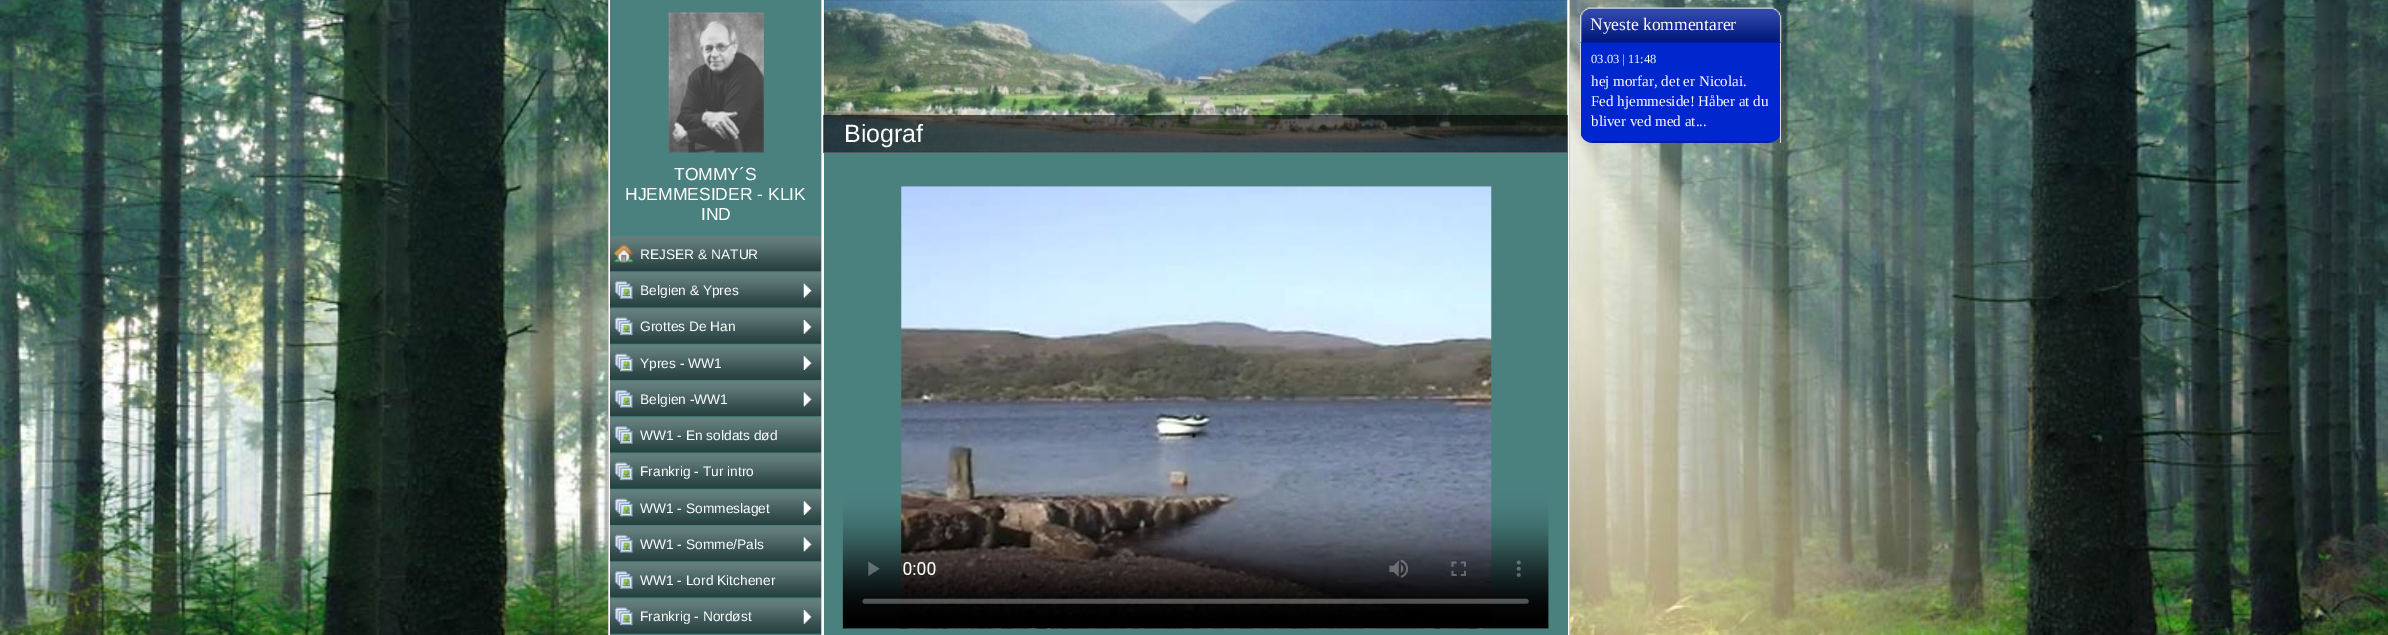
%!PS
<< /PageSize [2388 635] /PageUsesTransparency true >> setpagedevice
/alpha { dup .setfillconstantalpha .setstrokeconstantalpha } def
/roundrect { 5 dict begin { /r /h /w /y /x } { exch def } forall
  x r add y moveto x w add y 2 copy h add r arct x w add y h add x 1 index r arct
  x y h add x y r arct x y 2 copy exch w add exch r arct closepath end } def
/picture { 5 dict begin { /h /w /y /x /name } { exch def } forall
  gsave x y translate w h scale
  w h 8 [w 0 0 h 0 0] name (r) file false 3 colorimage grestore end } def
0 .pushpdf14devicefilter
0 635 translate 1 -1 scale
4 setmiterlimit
1 setgray
0 0 2388 635 rectfill
(img1.rgb) 0 0 2388 635 picture
0 0.153 0.804 setrgbcolor
1580 8 201 135 13 roundrect fill
(img2.rgb) 1580 7 202 36 picture
/LiberationSerif-Regular [17.5 0 0 -17.5 0 0] selectfont
1 setgray
1590 30 moveto (Nyeste kommentarer) show
0.855 setgray
1780 43 1 100 rectfill
1580 43 1 100 rectfill
/LiberationSerif-Regular [12.5 0 0 -12.5 0 0] selectfont
1 setgray
1591 63 moveto (03.03 | 11:48) show
/LiberationSerif-Regular [15 0 0 -15 0 0] selectfont
1591 86 moveto (hej morfar, det er Nicolai.) show
1591 106 moveto (Fed hjemmeside! Håber at du) show
1591 126 moveto (bliver ved med at...) show
(img3.rgb) 1591 141 179 2 picture
609 0 960 635 rectfill
0.8 setgray
608 0 1 635 rectfill
821 0 1 635 rectfill
0.29 0.506 0.498 setrgbcolor
824 153 744 482 rectfill
(img4.rgb) 823 0 745 153 picture
0.6 alpha
0 setgray
823 115 745 38 rectfill
/LiberationSans-Regular [25 0 0 -25 0 0] selectfont
1 alpha
1 setgray
844 142 moveto (Biograf) show
(img5.rgb) 842 186 707 443 picture
0.8 setgray
1569 0 1 635 rectfill
0.29 0.506 0.498 setrgbcolor
610 0 211 635 rectfill
(img6.rgb) 668 12 96 141 picture
/LiberationSans-Regular [17.5 0 0 -17.5 0 0] selectfont
1 setgray
674 180 moveto (TOMMY´S) show
625 200 moveto (HJEMMESIDER - KLIK) show
701 220 moveto (IND) show
(img7.rgb) 610 236 212 36 picture
(img8.rgb) 613 244 21 19 picture
/LiberationSans-Regular [13.75 0 0 -13.75 0 0] selectfont
640 259 moveto (REJSER & NATUR) show
(img9.rgb) 610 272 212 36 picture
(img10.rgb) 614 281 19 18 picture
(img11.rgb) 803 283 9 15 picture
640 295 moveto (Belgien & Ypres) show
(img12.rgb) 610 308 212 36 picture
(img13.rgb) 614 317 19 19 picture
(img14.rgb) 803 320 9 14 picture
640 331 moveto (Grottes De Han) show
(img15.rgb) 610 345 212 35 picture
(img16.rgb) 614 353 19 19 picture
(img17.rgb) 803 356 9 14 picture
640 368 moveto (Ypres - WW1) show
(img7.rgb) 610 381 212 36 picture
(img18.rgb) 614 389 19 19 picture
(img19.rgb) 803 392 9 15 picture
640 404 moveto (Belgien -WW1) show
(img9.rgb) 610 417 212 36 picture
(img20.rgb) 614 426 19 18 picture
640 440 moveto (WW1 - En soldats død) show
(img12.rgb) 610 453 212 36 picture
(img13.rgb) 614 462 19 19 picture
640 476 moveto (Frankrig - Tur intro) show
(img15.rgb) 610 490 212 35 picture
(img16.rgb) 614 498 19 19 picture
(img17.rgb) 803 501 9 14 picture
640 513 moveto (WW1 - Sommeslaget) show
(img7.rgb) 610 526 212 36 picture
(img18.rgb) 614 534 19 19 picture
(img19.rgb) 803 537 9 15 picture
640 549 moveto (WW1 - Somme/Pals) show
(img9.rgb) 610 562 212 36 picture
(img20.rgb) 614 571 19 18 picture
640 585 moveto (WW1 - Lord Kitchener) show
(img12.rgb) 610 598 212 36 picture
(img13.rgb) 614 607 19 19 picture
(img14.rgb) 803 610 9 14 picture
640 621 moveto (Frankrig - Nordøst) show
.poppdf14devicefilter showpage
